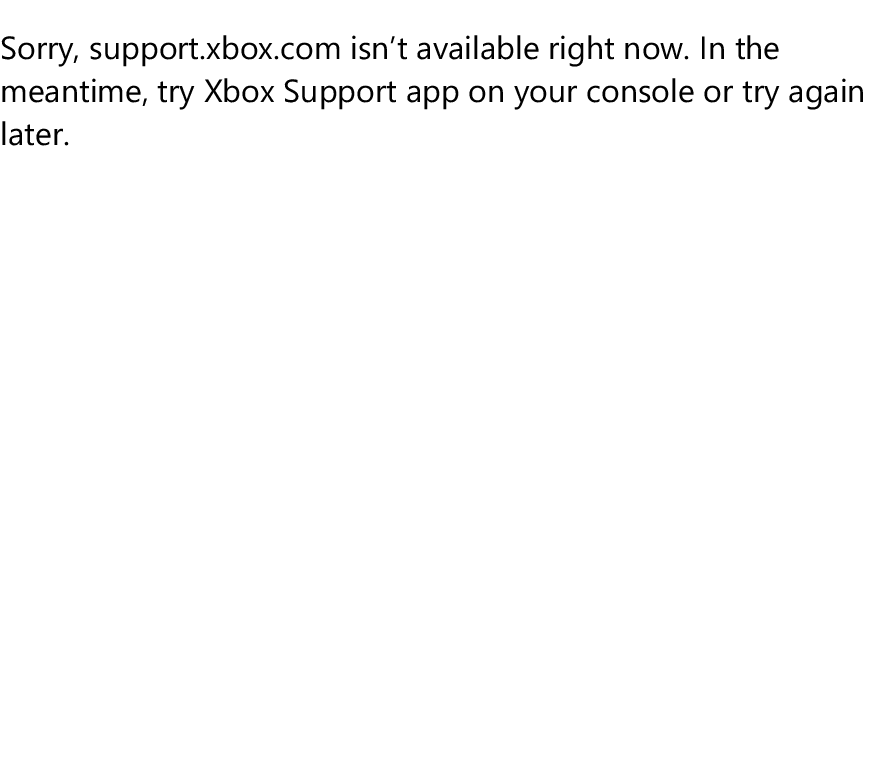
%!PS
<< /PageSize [880 775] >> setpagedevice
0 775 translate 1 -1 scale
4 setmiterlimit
1 setgray
0 0 880 775 rectfill
/SegoeUI-Regular [32 0 0 -32 0 0] selectfont
0 setgray
0 59 moveto (Sorry, support.xbox.com isn’t available right now. In the) show
0 102 moveto (meantime, try Xbox Support app on your console or try again) show
0 145 moveto (later.) show
showpage
